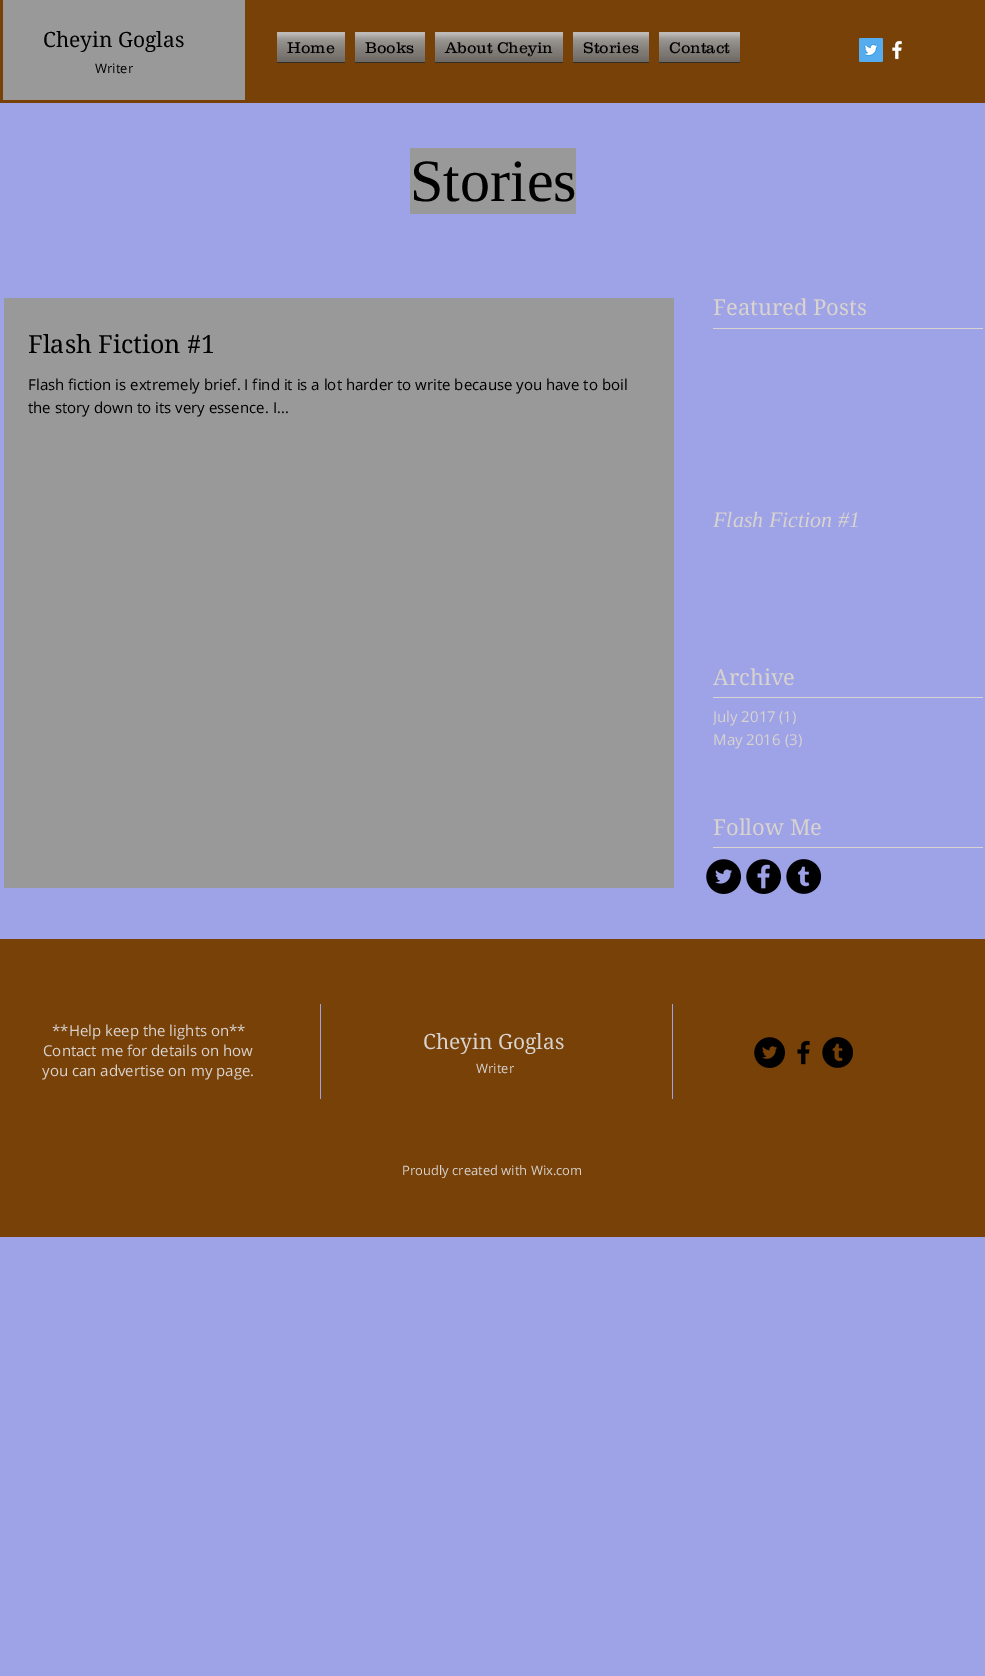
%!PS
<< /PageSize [985 1676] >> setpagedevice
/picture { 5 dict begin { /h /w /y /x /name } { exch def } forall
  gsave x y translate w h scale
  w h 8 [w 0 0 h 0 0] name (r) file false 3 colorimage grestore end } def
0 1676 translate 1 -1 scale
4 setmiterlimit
0.62 0.635 0.902 setrgbcolor
0 0 985 1676 rectfill
0.467 0.255 0.027 setrgbcolor
0 0 985 103 rectfill
0.6 setgray
3 0 242 100 rectfill
/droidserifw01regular-Regular [21 0 0 -21 0 0] selectfont
0 setgray
43 47 moveto (Cheyin Goglas) show
/OpenSans-Regular [13 0 0 -13 0 0] selectfont
95 73 moveto (Writer) show
0.192 0.18 0.149 setrgbcolor
277 62 68 1 rectfill
0.439 0.412 0.384 setrgbcolor
277 32 68 30 rectfill
(img1.rgb) 277 32 68 30 picture
(img2.rgb) 277 32 68 30 picture
/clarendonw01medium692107-Light [16 0 0 -16 0 0] selectfont
0 setgray
287 53 moveto (Home) show
0.192 0.18 0.149 setrgbcolor
355 62 70 1 rectfill
0.439 0.412 0.384 setrgbcolor
355 32 70 30 rectfill
(img3.rgb) 355 32 70 30 picture
(img4.rgb) 355 32 70 30 picture
0 setgray
365 53 moveto (Books) show
0.192 0.18 0.149 setrgbcolor
435 62 128 1 rectfill
0.439 0.412 0.384 setrgbcolor
435 32 128 30 rectfill
(img5.rgb) 435 32 128 30 picture
(img6.rgb) 435 32 128 30 picture
0 setgray
445 53 moveto (About Cheyin) show
0.192 0.18 0.149 setrgbcolor
573 62 76 1 rectfill
0.439 0.412 0.384 setrgbcolor
573 32 76 30 rectfill
(img7.rgb) 573 32 76 30 picture
(img8.rgb) 573 32 76 30 picture
0 setgray
583 53 moveto (Stories) show
0.192 0.18 0.149 setrgbcolor
659 62 81 1 rectfill
0.439 0.412 0.384 setrgbcolor
659 32 81 30 rectfill
(img9.rgb) 659 32 81 30 picture
(img10.rgb) 659 32 81 30 picture
0 setgray
669 53 moveto (Contact) show
(img11.rgb) 859 38 24 24 picture
(img12.rgb) 892 40 10 20 picture
0.6 setgray
410 148 166 66 rectfill
/LiberationSerif-Regular [60 0 0 -60 0 0] selectfont
0 setgray
410 201 moveto (Stories) show
/droidserifw01regular-Regular [22 0 0 -22 0 0] selectfont
0.847 0.827 0.812 setrgbcolor
713 315 moveto (Featured Posts) show
713 328 270 1 rectfill
0.6 setgray
4 298 670 590 rectfill
/droidserifw01regular-Regular [25 0 0 -25 0 0] selectfont
0 setgray
28 353 moveto (Flash Fiction #1) show
/OpenSans-Regular [15 0 0 -15 0 0] selectfont
28 390 moveto (Flash fiction is extremely brief. I find it is a lot harder to write because you have to boil) show
28 413 moveto (the story down to its very essence. I...) show
/LiberationSerif-Italic [22 0 0 -22 0 0] selectfont
0.847 0.827 0.812 setrgbcolor
713 527 moveto (Flash Fiction #1) show
/droidserifw01regular-Regular [22 0 0 -22 0 0] selectfont
713 685 moveto (Archive) show
713 697 270 1 rectfill
gsave
713 705 84 23 rectclip
/OpenSans-Regular [15 0 0 -15 0 0] selectfont
713 722 moveto (July 2017) show
grestore
/OpenSans-Regular [15 0 0 -15 0 0] selectfont
779 722 moveto (\(1\)) show
713 745 moveto (May 2016 \(3\)) show
/droidserifw01regular-Regular [22 0 0 -22 0 0] selectfont
713 835 moveto (Follow Me) show
713 847 270 1 rectfill
(img13.rgb) 706 859 35 35 picture
(img14.rgb) 746 859 35 35 picture
(img15.rgb) 786 859 35 35 picture
0.467 0.255 0.027 setrgbcolor
0 939 985 298 rectfill
0.62 0.635 0.902 setrgbcolor
320 1004 1 95 rectfill
672 1004 1 95 rectfill
/OpenSans-Regular [15 0 0 -15 0 0] selectfont
0.847 0.827 0.812 setrgbcolor
52 1036 moveto (**Help keep the lights on**) show
43 1056 moveto (Contact me for details on how) show
42 1076 moveto (you can advertise on my page.) show
/droidserifw01regular-Regular [21 0 0 -21 0 0] selectfont
423 1049 moveto (Cheyin Goglas) show
(img16.rgb) 754 1037 31 31 picture
(img17.rgb) 797 1040 13 25 picture
(img18.rgb) 822 1037 31 31 picture
/OpenSans-Regular [13 0 0 -13 0 0] selectfont
402 1175 moveto (Proudly created with Wix.com) show
476 1073 moveto (Writer) show
showpage
